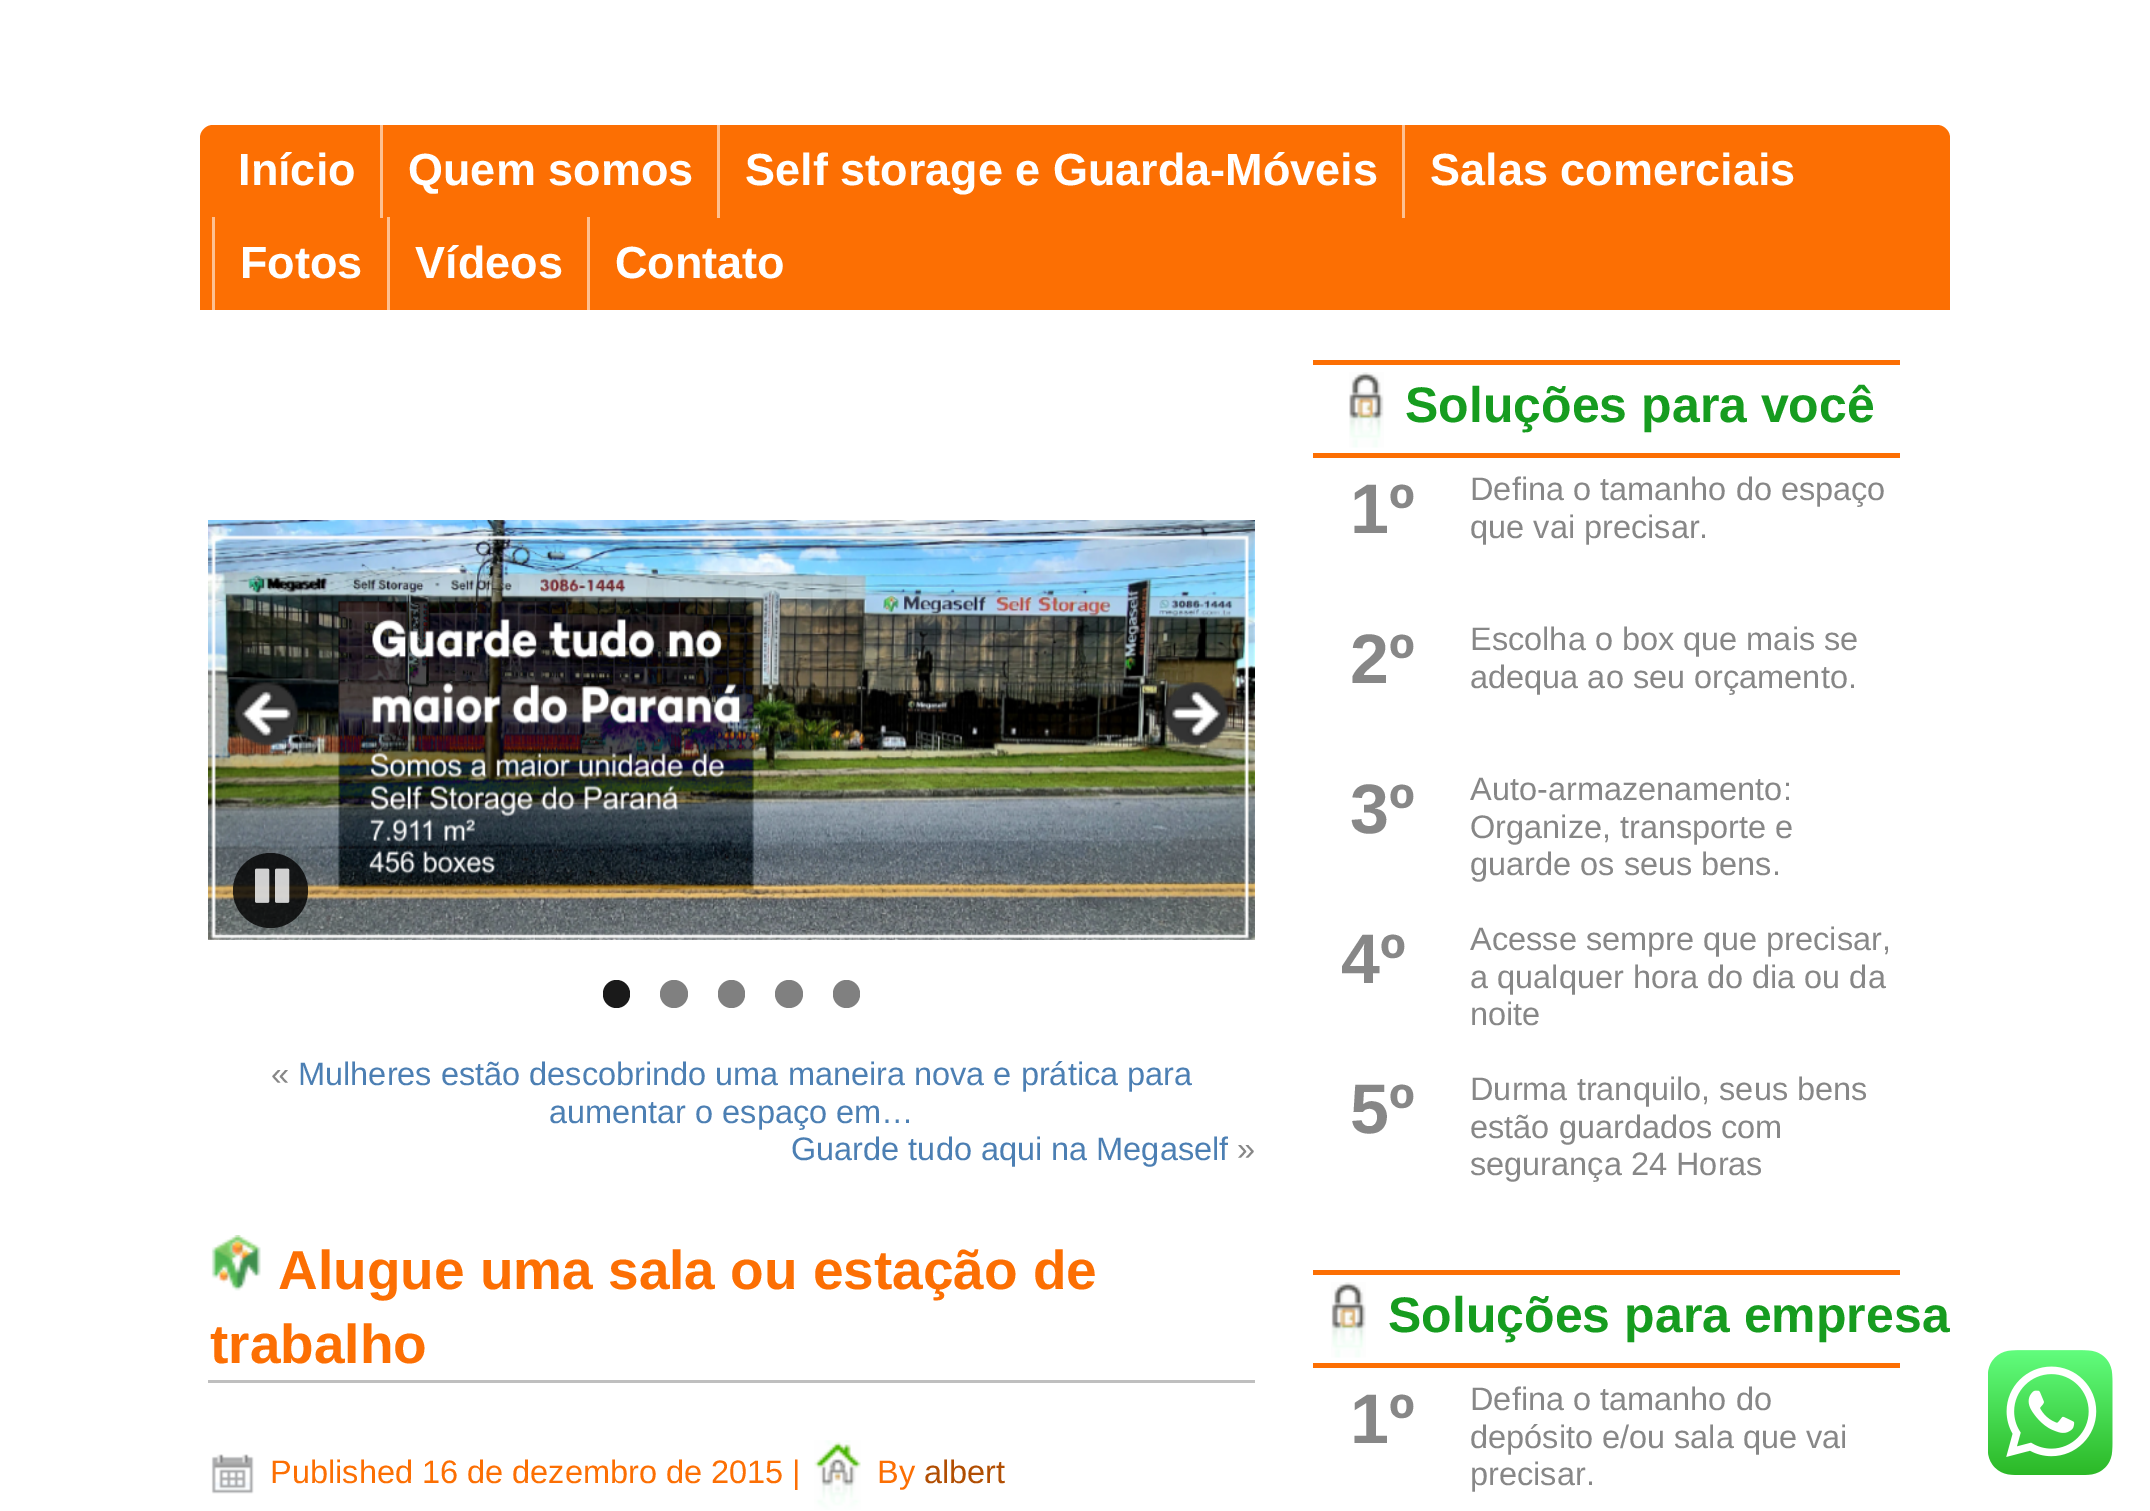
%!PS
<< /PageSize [2150 1511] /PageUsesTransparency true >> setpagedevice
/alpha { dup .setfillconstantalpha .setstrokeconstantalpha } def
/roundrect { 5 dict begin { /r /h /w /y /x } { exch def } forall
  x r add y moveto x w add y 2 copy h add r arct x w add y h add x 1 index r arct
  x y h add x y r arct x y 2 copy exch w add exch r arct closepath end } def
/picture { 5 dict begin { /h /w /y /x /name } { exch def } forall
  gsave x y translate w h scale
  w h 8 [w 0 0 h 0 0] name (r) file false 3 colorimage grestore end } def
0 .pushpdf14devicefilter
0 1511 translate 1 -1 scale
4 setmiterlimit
1 setgray
0 0 2150 1511 rectfill
0.988 0.435 0.012 setrgbcolor
newpath 213 125 moveto 1937 125 lineto 1944 125 1950 131 1950 138 curveto 1950 310 lineto 200 310 lineto 200 138 lineto 200 131 206 125 213 125 curveto closepath fill
/LiberationSans-Bold [45 0 0 -45 0 0] selectfont
1 setgray
238 185 moveto (Início) show
0.996 0.753 0.565 setrgbcolor
380 125 3 93 rectfill
1 setgray
408 185 moveto (Quem somos) show
0.996 0.753 0.565 setrgbcolor
717 125 3 93 rectfill
1 setgray
745 185 moveto (Self storage e Guarda-Móveis) show
0.996 0.753 0.565 setrgbcolor
1402 125 3 93 rectfill
1 setgray
1430 185 moveto (Salas comerciais) show
0.996 0.753 0.565 setrgbcolor
212 217 3 93 rectfill
1 setgray
240 278 moveto (Fotos) show
0.996 0.753 0.565 setrgbcolor
387 217 3 93 rectfill
1 setgray
415 278 moveto (Vídeos) show
0.996 0.753 0.565 setrgbcolor
587 217 3 93 rectfill
1 setgray
615 278 moveto (Contato) show
(img1.rgb) 208 520 1047 420 picture
(img2.rgb) 234 682 65 64 picture
(img3.rgb) 1164 682 65 64 picture
0.8 alpha
0 setgray
newpath 270.5 890.5 37.5 0 360 arc closepath fill
1 alpha
(img4.rgb) 255 868 35 35 picture
0.102 setgray
603 980 27 28 13.5 roundrect fill
0.502 setgray
newpath 674 994 14 0 360 arc closepath fill
718 980 27 28 13.5 roundrect fill
newpath 789 994 14 0 360 arc closepath fill
833 980 27 28 13.5 roundrect fill
/LiberationSans-Regular [32.5 0 0 -32.5 0 0] selectfont
0.529 setgray
271 1085 moveto («) show
0.298 0.498 0.702 setrgbcolor
298 1085 moveto (Mulheres estão descobrindo uma maneira nova e prática para) show
549 1123 moveto (aumentar o espaço em…) show
791 1160 moveto (Guarde tudo aqui na Megaself) show
0.529 setgray
1237 1160 moveto (») show
0.749 setgray
208 1380 1047 3 rectfill
(img5.rgb) 211 1235 50 56 picture
/LiberationSans-Bold [55 0 0 -55 0 0] selectfont
0.988 0.435 0.012 setrgbcolor
278 1289 moveto (Alugue uma sala ou estação de) show
210 1363 moveto (trabalho) show
(img6.rgb) 211 1454 43 40 picture
/LiberationSans-Regular [32.5 0 0 -32.5 0 0] selectfont
270 1483 moveto (Published 16 de dezembro de 2015 |) show
(img7.rgb) 814 1440 47 70 picture
877 1483 moveto (By) show
0.694 0.306 0.008 setrgbcolor
924 1483 moveto (albert) show
0.988 0.435 0.012 setrgbcolor
1313 360 587 5 rectfill
1313 453 587 5 rectfill
(img8.rgb) 1349 372 35 76 picture
/LiberationSans-Bold [50 0 0 -50 0 0] selectfont
0.086 0.612 0.122 setrgbcolor
1405 422 moveto (Soluções para você) show
/LiberationSans-Bold [70 0 0 -70 0 0] selectfont
0.529 setgray
1350 533 moveto (1º) show
/LiberationSans-Regular [32.5 0 0 -32.5 0 0] selectfont
1470 500 moveto (Defina o tamanho do espaço) show
1470 538 moveto (que vai precisar.) show
/LiberationSans-Bold [70 0 0 -70 0 0] selectfont
1350 683 moveto (2º) show
/LiberationSans-Regular [32.5 0 0 -32.5 0 0] selectfont
1470 650 moveto (Escolha o box que mais se) show
1470 688 moveto (adequa ao seu orçamento.) show
/LiberationSans-Bold [70 0 0 -70 0 0] selectfont
1350 833 moveto (3º) show
/LiberationSans-Regular [32.5 0 0 -32.5 0 0] selectfont
1470 800 moveto (Auto-armazenamento:) show
1470 838 moveto (Organize, transporte e) show
1470 875 moveto (guarde os seus bens.) show
/LiberationSans-Bold [70 0 0 -70 0 0] selectfont
1341 983 moveto (4º) show
/LiberationSans-Regular [32.5 0 0 -32.5 0 0] selectfont
1470 950 moveto (Acesse sempre que precisar,) show
1470 988 moveto (a qualquer hora do dia ou da) show
1470 1025 moveto (noite) show
/LiberationSans-Bold [70 0 0 -70 0 0] selectfont
1350 1133 moveto (5º) show
/LiberationSans-Regular [32.5 0 0 -32.5 0 0] selectfont
1470 1100 moveto (Durma tranquilo, seus bens) show
1470 1138 moveto (estão guardados com) show
1470 1175 moveto (segurança 24 Horas) show
0.988 0.435 0.012 setrgbcolor
1313 1270 587 5 rectfill
1313 1363 587 5 rectfill
(img9.rgb) 1331 1282 35 76 picture
/LiberationSans-Bold [50 0 0 -50 0 0] selectfont
0.086 0.612 0.122 setrgbcolor
1388 1332 moveto (Soluções para empresa) show
/LiberationSans-Bold [70 0 0 -70 0 0] selectfont
0.529 setgray
1350 1443 moveto (1º) show
/LiberationSans-Regular [32.5 0 0 -32.5 0 0] selectfont
1470 1410 moveto (Defina o tamanho do) show
1470 1448 moveto (depósito e/ou sala que vai) show
1470 1485 moveto (precisar.) show
(img10.rgb) 1988 1350 125 125 picture
.poppdf14devicefilter showpage
